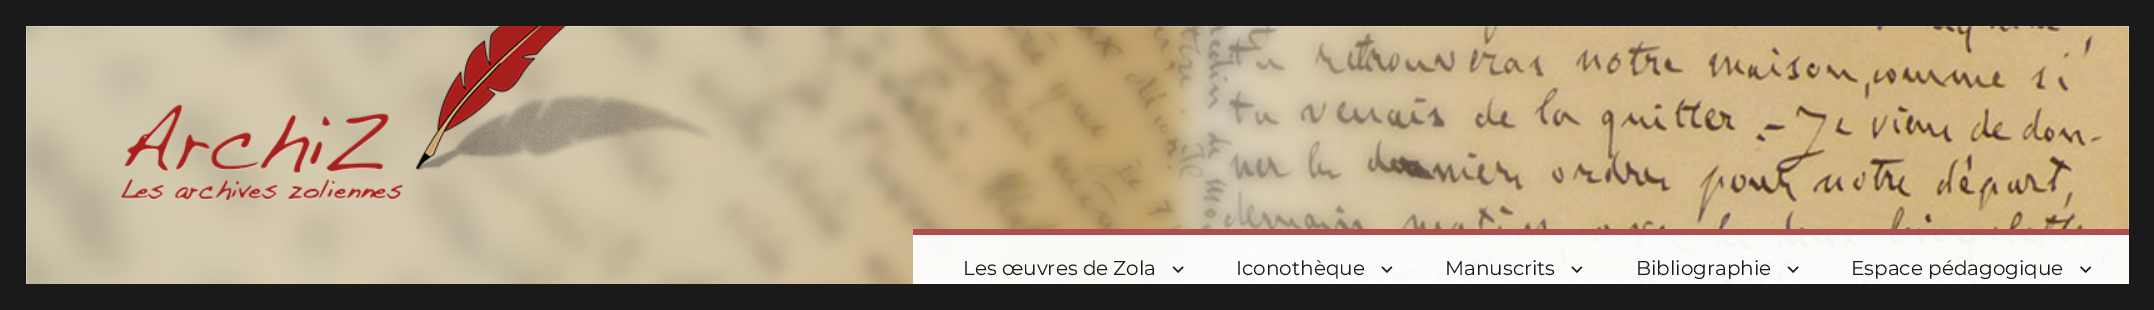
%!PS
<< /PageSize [2154 310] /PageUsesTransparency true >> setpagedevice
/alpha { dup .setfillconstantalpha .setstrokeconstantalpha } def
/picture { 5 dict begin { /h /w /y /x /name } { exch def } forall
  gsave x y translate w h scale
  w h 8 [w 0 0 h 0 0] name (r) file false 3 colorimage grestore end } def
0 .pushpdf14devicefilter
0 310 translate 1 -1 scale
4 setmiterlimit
0.102 setgray
0 0 2154 310 rectfill
1 setgray
26 26 2103 258 rectfill
(img1.rgb) 26 26 2103 258 picture
(img2.rgb) 121 26 592 176 picture
0.95 alpha
913 235 1216 49 rectfill
1 alpha
0.678 0.31 0.31 setrgbcolor
913 229 1216 6 rectfill
/Montserrat-Thin [20 0 0 -20 0 0] selectfont
0.102 setgray
963 275 moveto (Les œuvres de Zola) show
(img3.rgb) 1172 266 12 7 picture
1236 275 moveto (Iconothèque) show
(img4.rgb) 1381 266 12 7 picture
1445 275 moveto (Manuscrits) show
(img5.rgb) 1571 266 12 7 picture
1636 275 moveto (Bibliographie) show
(img6.rgb) 1787 266 12 7 picture
1851 275 moveto (Espace pédagogique) show
(img7.rgb) 2080 266 12 7 picture
.poppdf14devicefilter showpage
